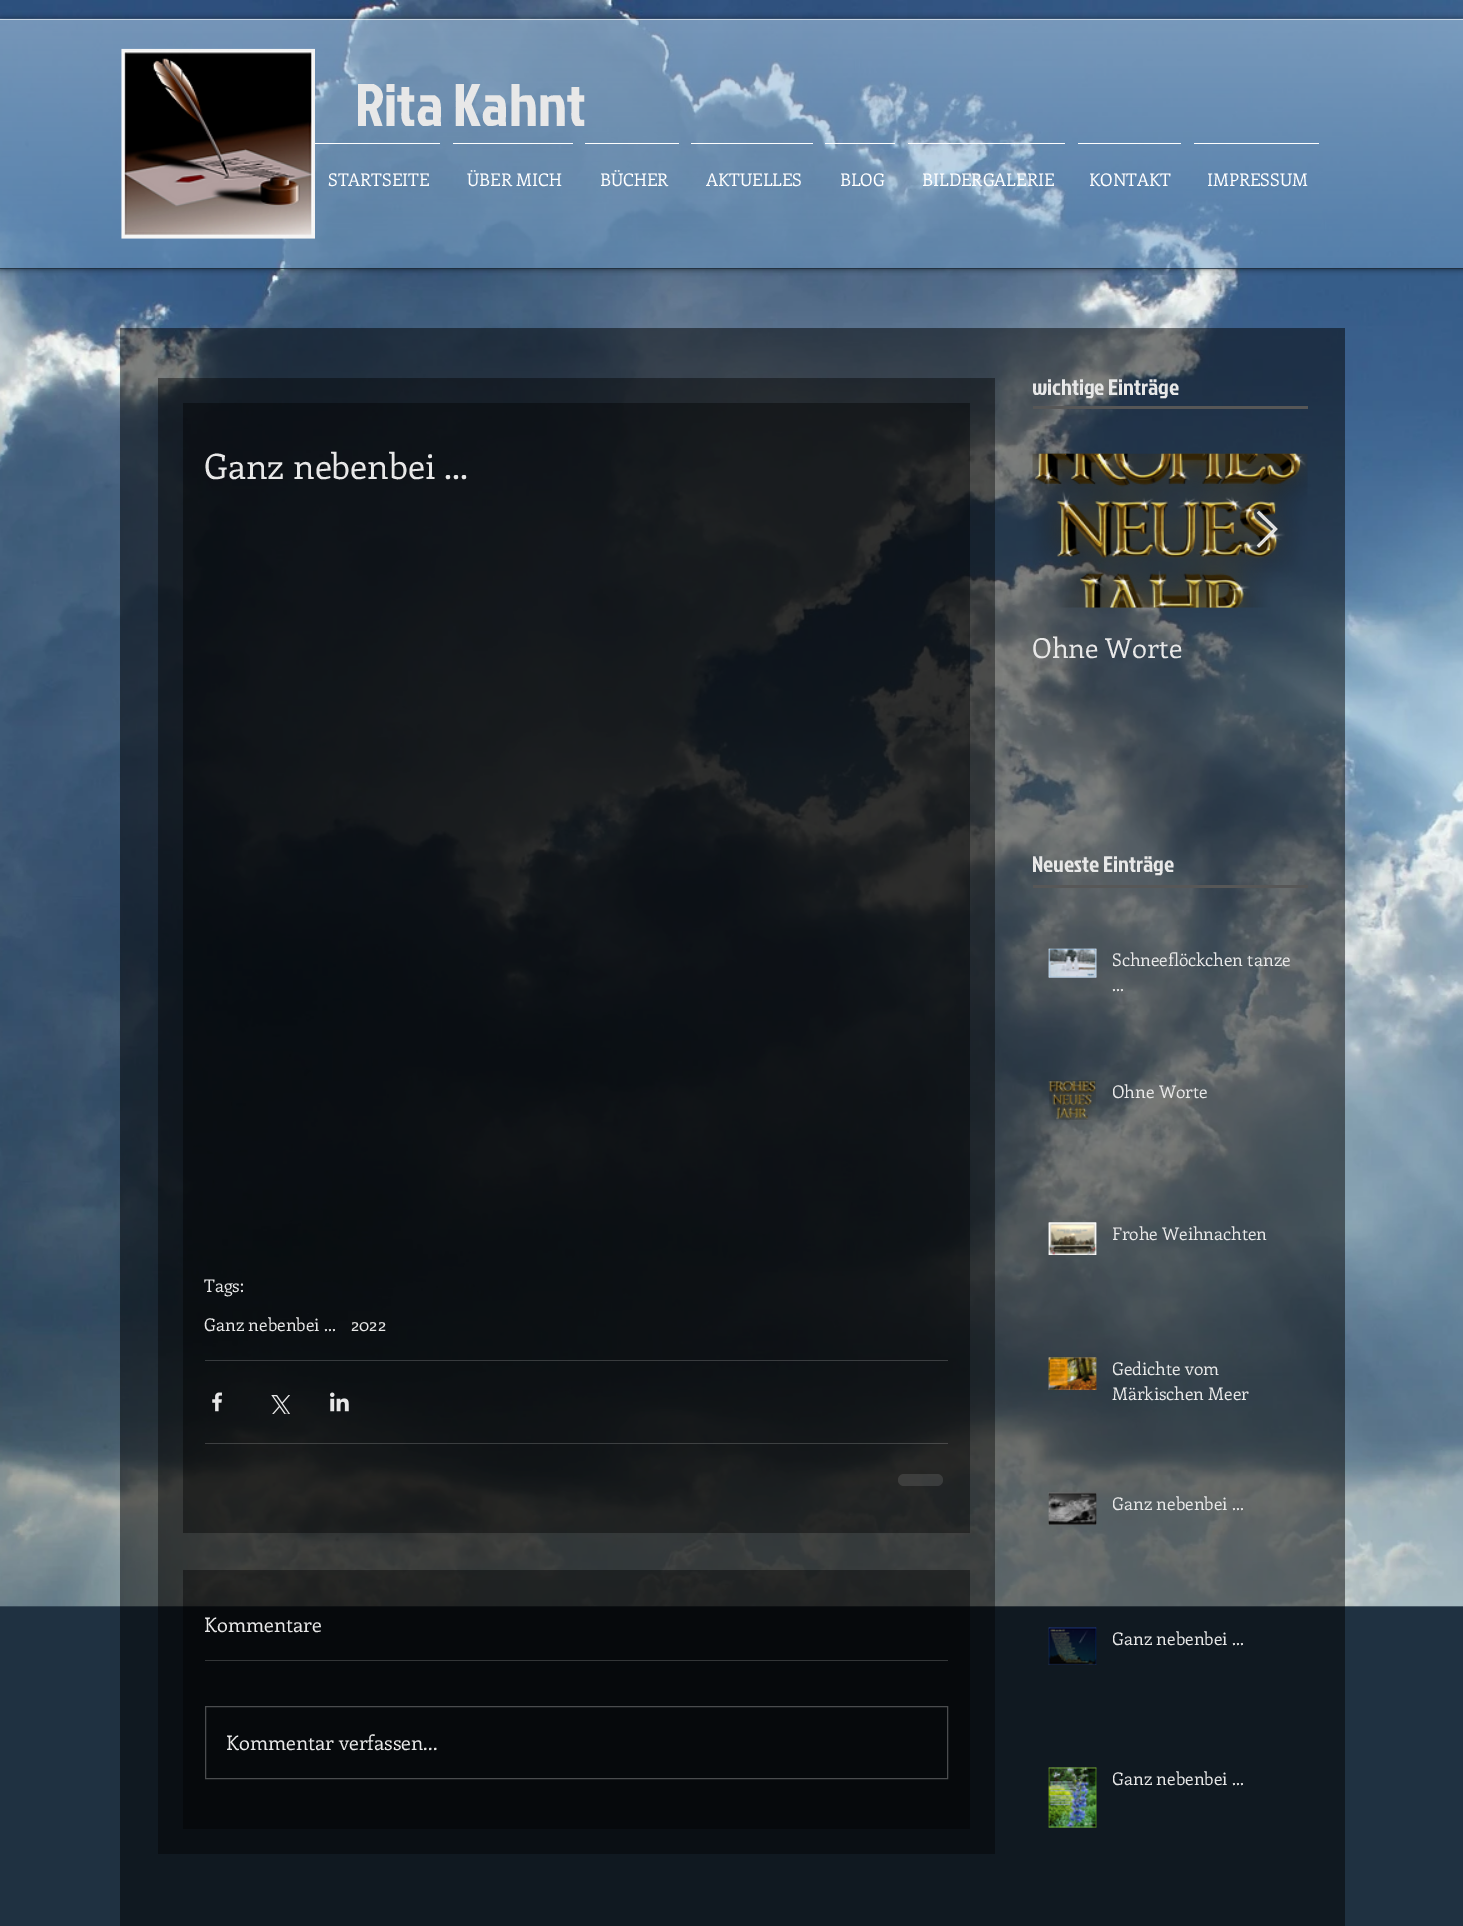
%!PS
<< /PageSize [1463 1926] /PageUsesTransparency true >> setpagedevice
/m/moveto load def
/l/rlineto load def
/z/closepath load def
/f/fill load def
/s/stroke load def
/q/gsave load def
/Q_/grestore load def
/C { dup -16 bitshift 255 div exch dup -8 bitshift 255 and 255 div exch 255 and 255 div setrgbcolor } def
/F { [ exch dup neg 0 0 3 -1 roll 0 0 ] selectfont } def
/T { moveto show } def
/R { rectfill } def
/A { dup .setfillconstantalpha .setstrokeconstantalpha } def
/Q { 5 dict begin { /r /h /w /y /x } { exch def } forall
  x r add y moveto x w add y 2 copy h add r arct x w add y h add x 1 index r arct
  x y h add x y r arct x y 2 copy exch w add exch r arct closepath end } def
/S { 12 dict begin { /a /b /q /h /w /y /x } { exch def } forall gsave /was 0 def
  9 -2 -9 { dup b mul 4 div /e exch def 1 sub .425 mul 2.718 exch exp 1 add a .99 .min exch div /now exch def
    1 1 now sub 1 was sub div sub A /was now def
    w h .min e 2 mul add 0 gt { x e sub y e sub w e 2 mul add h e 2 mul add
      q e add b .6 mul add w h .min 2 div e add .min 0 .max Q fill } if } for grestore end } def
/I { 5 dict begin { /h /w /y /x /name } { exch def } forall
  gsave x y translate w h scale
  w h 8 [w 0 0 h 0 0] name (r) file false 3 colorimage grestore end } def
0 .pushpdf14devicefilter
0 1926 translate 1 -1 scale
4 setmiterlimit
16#1F3141 C
0 0 1463 1926 R
(1.rgb) 0 0 1463 1607 I
q
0 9 m 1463 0 l 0 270 l -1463 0 l z 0 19 m 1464 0 l 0 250 l -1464 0 l z eoclip newpath
16#000000 C
0 19 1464 250 0 3 .6 S
Q_
0.48 A
16#5E93C4 C
0 19 1463 250 R
1 A
(2.rgb) 0 18 1463 251 I
0.6 A
16#000000 C
0 268 1463 1 R
16#FFFFFF C
0 19 1463 1 R
1 A
(3.rgb) 121 48 194 191 I
/JockeyOne-Regular 60 F
16#E8E8E8 C
(Rita Kahnt) 355 126 T
16#FFFFFF C
315 143 125 1 R
/Enriqueta-Regular 17.5 F
(STARTSEITE) 328 186 T
453 143 120 1 R
(ÜBER MICH) 467 186 T
585 143 94 1 R
(BÜCHER) 600 186 T
691 143 122 1 R
(AKTUELLES) 706 186 T
825 143 70 1 R
(BLOG) 840 186 T
908 143 157 1 R
(BILDERGALERIE) 922 186 T
1078 143 103 1 R
(KONTAKT) 1089 186 T
1194 143 125 1 R
(IMPRESSUM) 1207 186 T
0.49 A
16#000000 C
120 328 1225 1598 R
0.4 A
158 378 837 1476 R
183 403 787 1130 R
/Enriqueta-Regular 35 F
1 A
16#E8E8E8 C
(Ganz nebenbei ...) 204 479 T
/Enriqueta-Regular 17.5 F
(Tags:) 204 1292 T
(Ganz nebenbei ...) 204 1331 T
(2022) 351 1331 T
0.2 A
205 1360 743 1 R
1 A
(4.rgb) 212 1392 10 20 I
(5.rgb) 271 1395 19 19 I
(6.rgb) 330 1392 19 20 I
0.2 A
205 1443 743 1 R
0.12 A
898 1474 45 12 6 Q f
0.4 A
16#000000 C
183 1570 787 259 R
/Enriqueta-Regular 20 F
1 A
16#E8E8E8 C
(Kommentare) 204 1632 T
16#333638 C
205 1660 743 1 R
16#4A4C4E C
205.5 1706.5 742 72 rectstroke
16#E8E8E8 C
(Kommentar verfassen...) 226 1750 T
/JockeyOne-Regular 22.5 F
(wichtige Einträge) 1032 395 T
16#575757 C
1033 406 275 3 R
(7.rgb) 1032 453 276 155 I
(8.rgb) 1035 453 271 155 I
0.9 A
16#E8E8E8 C
1257.5 513 m 1.5 -1.5 l 18 17.5 l -18 18 l -1.5 -1.5 l 16.5 -16.5 l z q f Q_
s
/Enriqueta-Regular 27.5 F
1 A
(Ohne Worte) 1032 658 T
/JockeyOne-Regular 22.5 F
(Neueste Einträge) 1032 872 T
16#575757 C
1033 885 275 3 R
(9.rgb) 1048 948 49 30 I
(10.rgb) 1048 948 49 30 I
q
1113 948 180 48 rectclip
/Enriqueta-Regular 17.5 F
16#E8E8E8 C
(Schneeflöckchen tanze) 1112 966 T
Q_
/Enriqueta-Regular 17.5 F
16#E8E8E8 C
(...) 1112 991 T
(11.rgb) 1049 1080 47 40 I
(12.rgb) 1048 1081 48 39 I
q
1113 1079 180 25 rectclip
(Ohne Worte) 1112 1098 T
Q_
(13.rgb) 1048 1222 49 33 I
(14.rgb) 1048 1222 49 33 I
q
1113 1221 180 25 rectclip
(Frohe Weihnachten) 1112 1240 T
Q_
(15.rgb) 1048 1357 49 33 I
(16.rgb) 1048 1357 49 33 I
q
1113 1356 180 49 rectclip
(Gedichte vom) 1112 1375 T
Q_
(Märkischen Meer) 1112 1400 T
(17.rgb) 1048 1492 49 33 I
(18.rgb) 1048 1492 49 33 I
q
1113 1491 180 25 rectclip
(Ganz nebenbei ...) 1112 1510 T
Q_
(19.rgb) 1048 1627 49 38 I
(20.rgb) 1048 1627 49 38 I
q
1113 1626 180 25 rectclip
(Ganz nebenbei ...) 1112 1645 T
Q_
(21.rgb) 1048 1767 49 61 I
(22.rgb) 1048 1767 49 61 I
q
1113 1766 180 25 rectclip
(Ganz nebenbei ...) 1112 1785 T
Q_
.poppdf14devicefilter showpage
